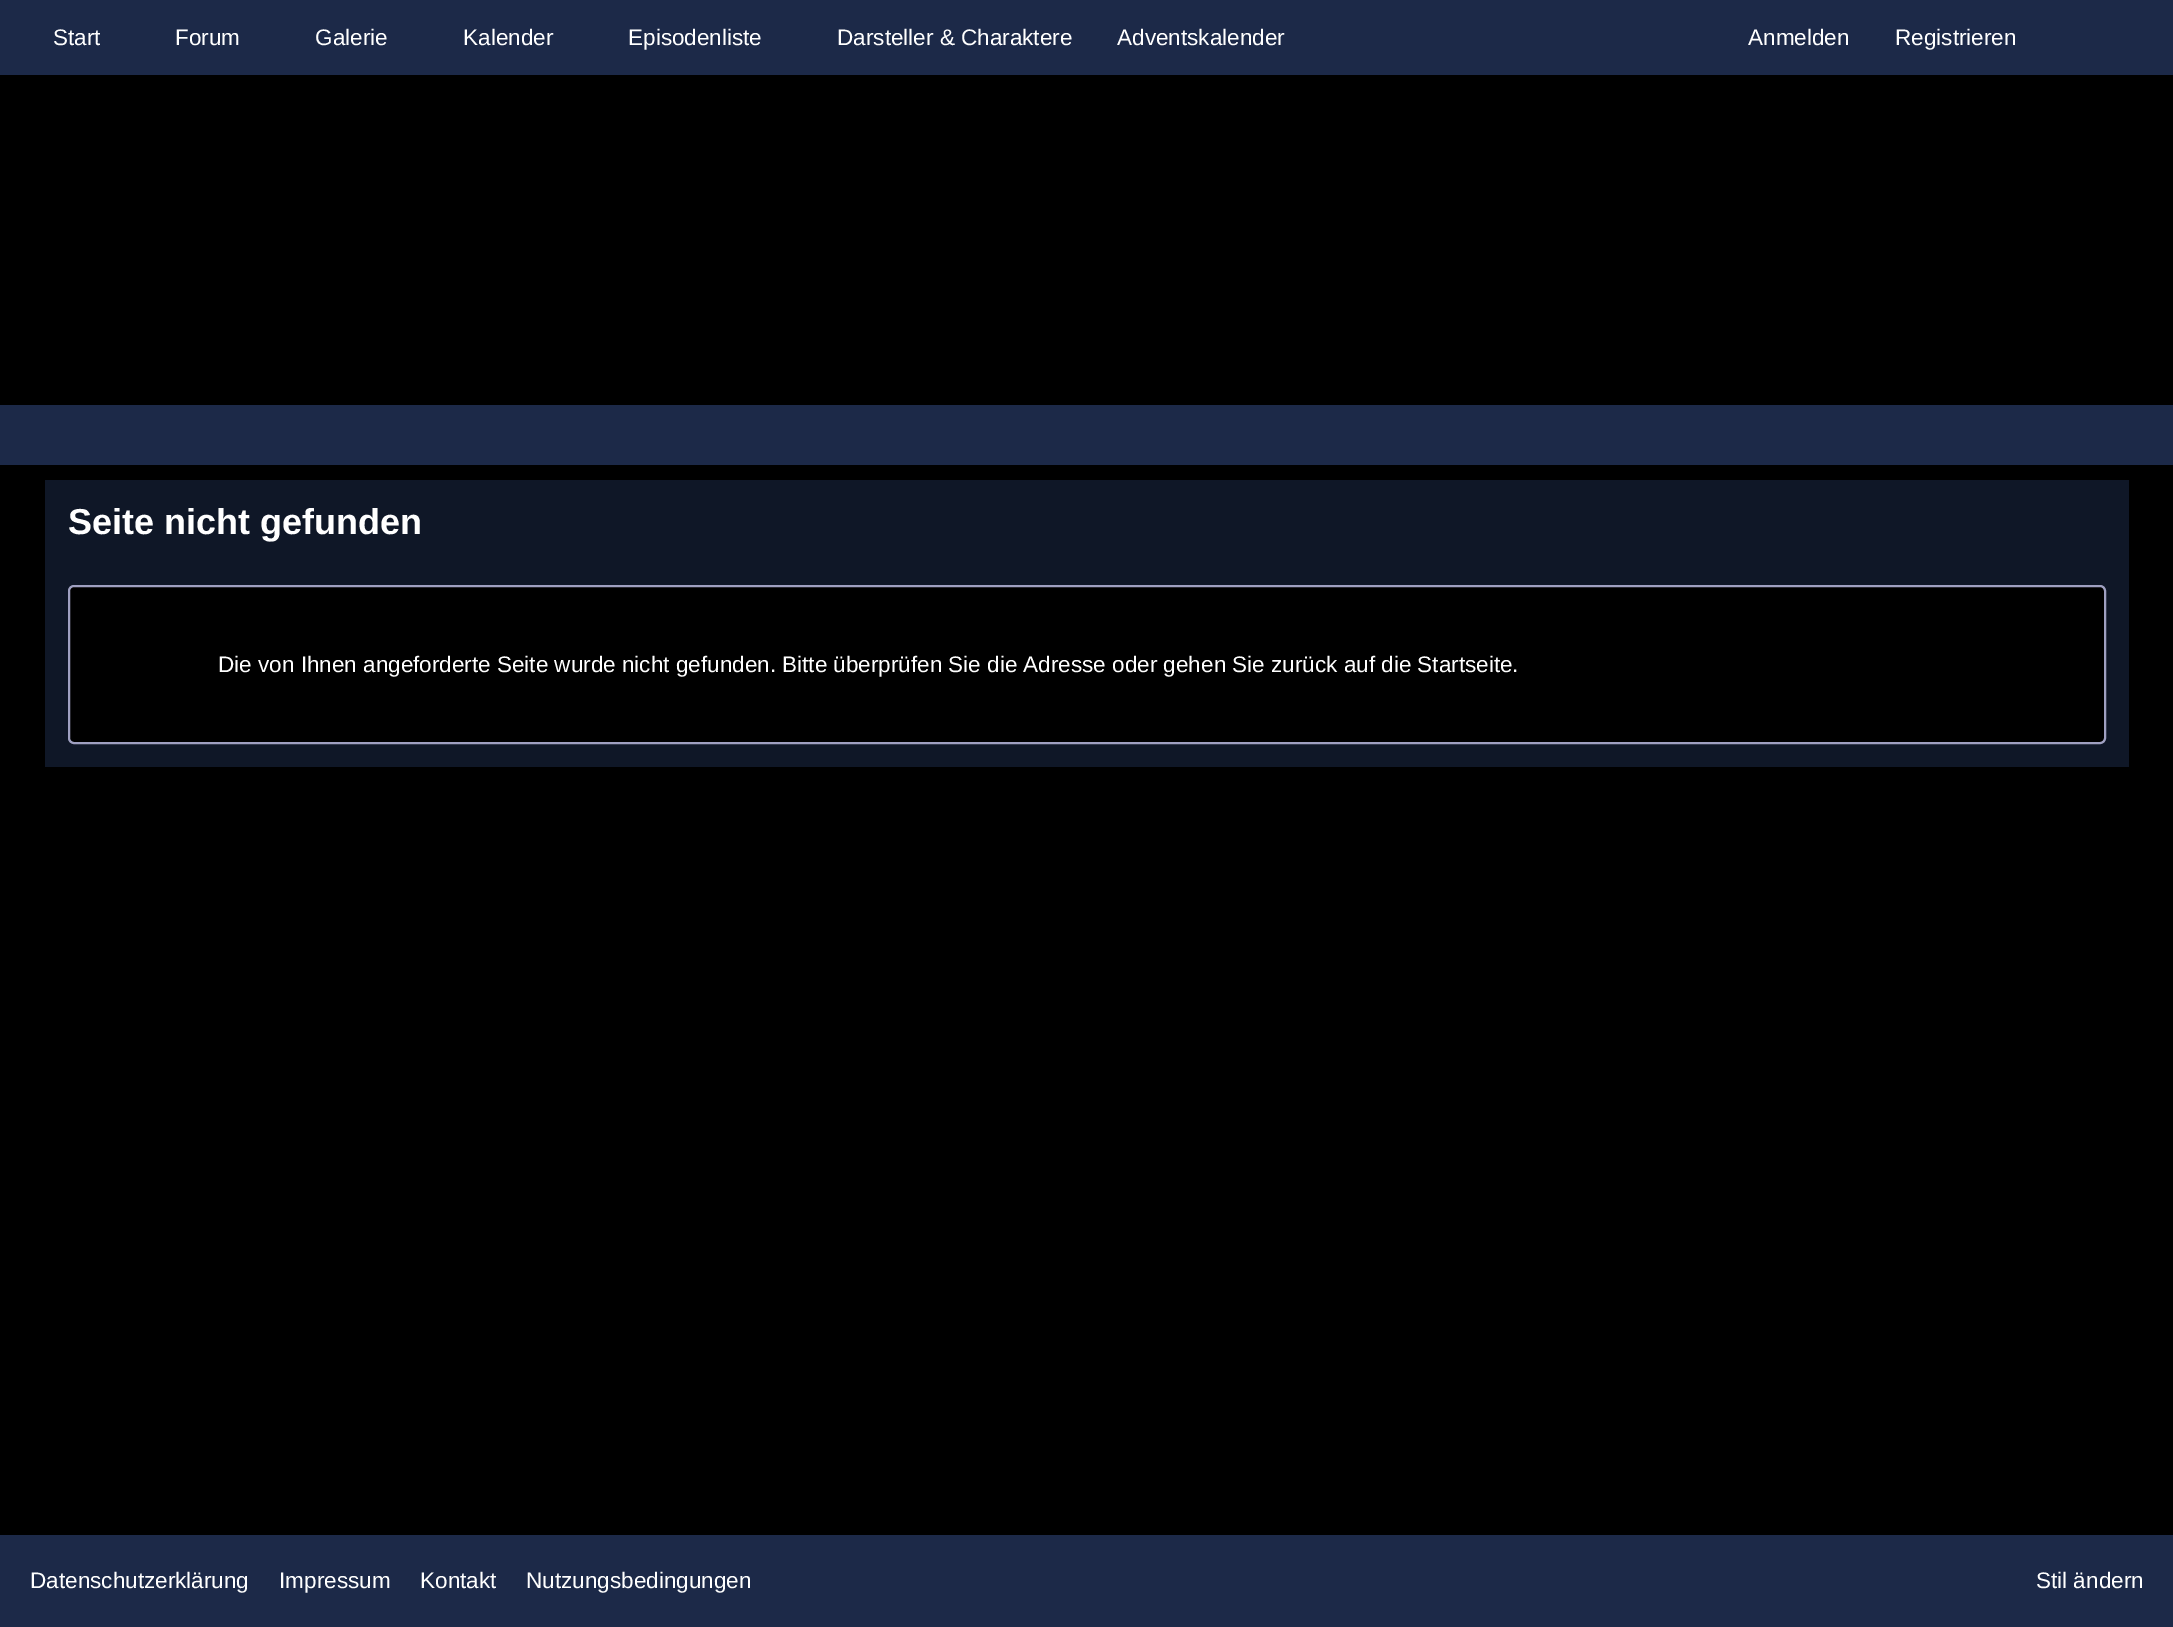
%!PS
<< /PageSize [2173 1627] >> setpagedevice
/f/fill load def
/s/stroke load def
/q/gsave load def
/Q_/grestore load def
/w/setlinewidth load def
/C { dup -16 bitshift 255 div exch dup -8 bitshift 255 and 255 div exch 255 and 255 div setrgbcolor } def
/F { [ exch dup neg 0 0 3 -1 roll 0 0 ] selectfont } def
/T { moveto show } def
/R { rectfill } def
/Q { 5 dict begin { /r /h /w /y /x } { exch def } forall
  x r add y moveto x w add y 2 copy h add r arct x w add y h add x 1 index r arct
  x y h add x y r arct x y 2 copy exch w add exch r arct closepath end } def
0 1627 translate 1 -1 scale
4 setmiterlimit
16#000000 C
0 0 2173 1627 R
16#1C2948 C
0 0 2173 75 R
/LiberationSans-Regular 22.5 F
16#FFFFFF C
(Start) 53 45 T
(Forum) 175 45 T
(Galerie) 315 45 T
(Kalender) 463 45 T
(Episodenliste) 628 45 T
(Darsteller & Charaktere) 837 45 T
(Adventskalender) 1117 45 T
(Anmelden) 1748 45 T
(Registrieren) 1895 45 T
16#1C2948 C
0 405 2173 60 R
16#0F1727 C
45 480 2084 287 R
/LiberationSans-Bold 36 F
16#FFFFFF C
(Seite nicht gefunden) 68 534 T
16#000000 C
69 586 2036 157 5 Q q f Q_
16#9FA0C1 C
2 w
s
/LiberationSans-Regular 22.5 F
16#FFFFFF C
(Die von Ihnen angeforderte Seite wurde nicht gefunden. Bitte überprüfen Sie die Adresse oder gehen Sie zurück auf die Startseite.) 218 672 T
16#1C2948 C
0 1535 2173 92 R
16#FFFFFF C
(Datenschutzerklärung) 30 1588 T
(Impressum) 279 1588 T
(Kontakt) 420 1588 T
(Nutzungsbedingungen) 526 1588 T
(Stil ändern) 2036 1588 T
showpage
